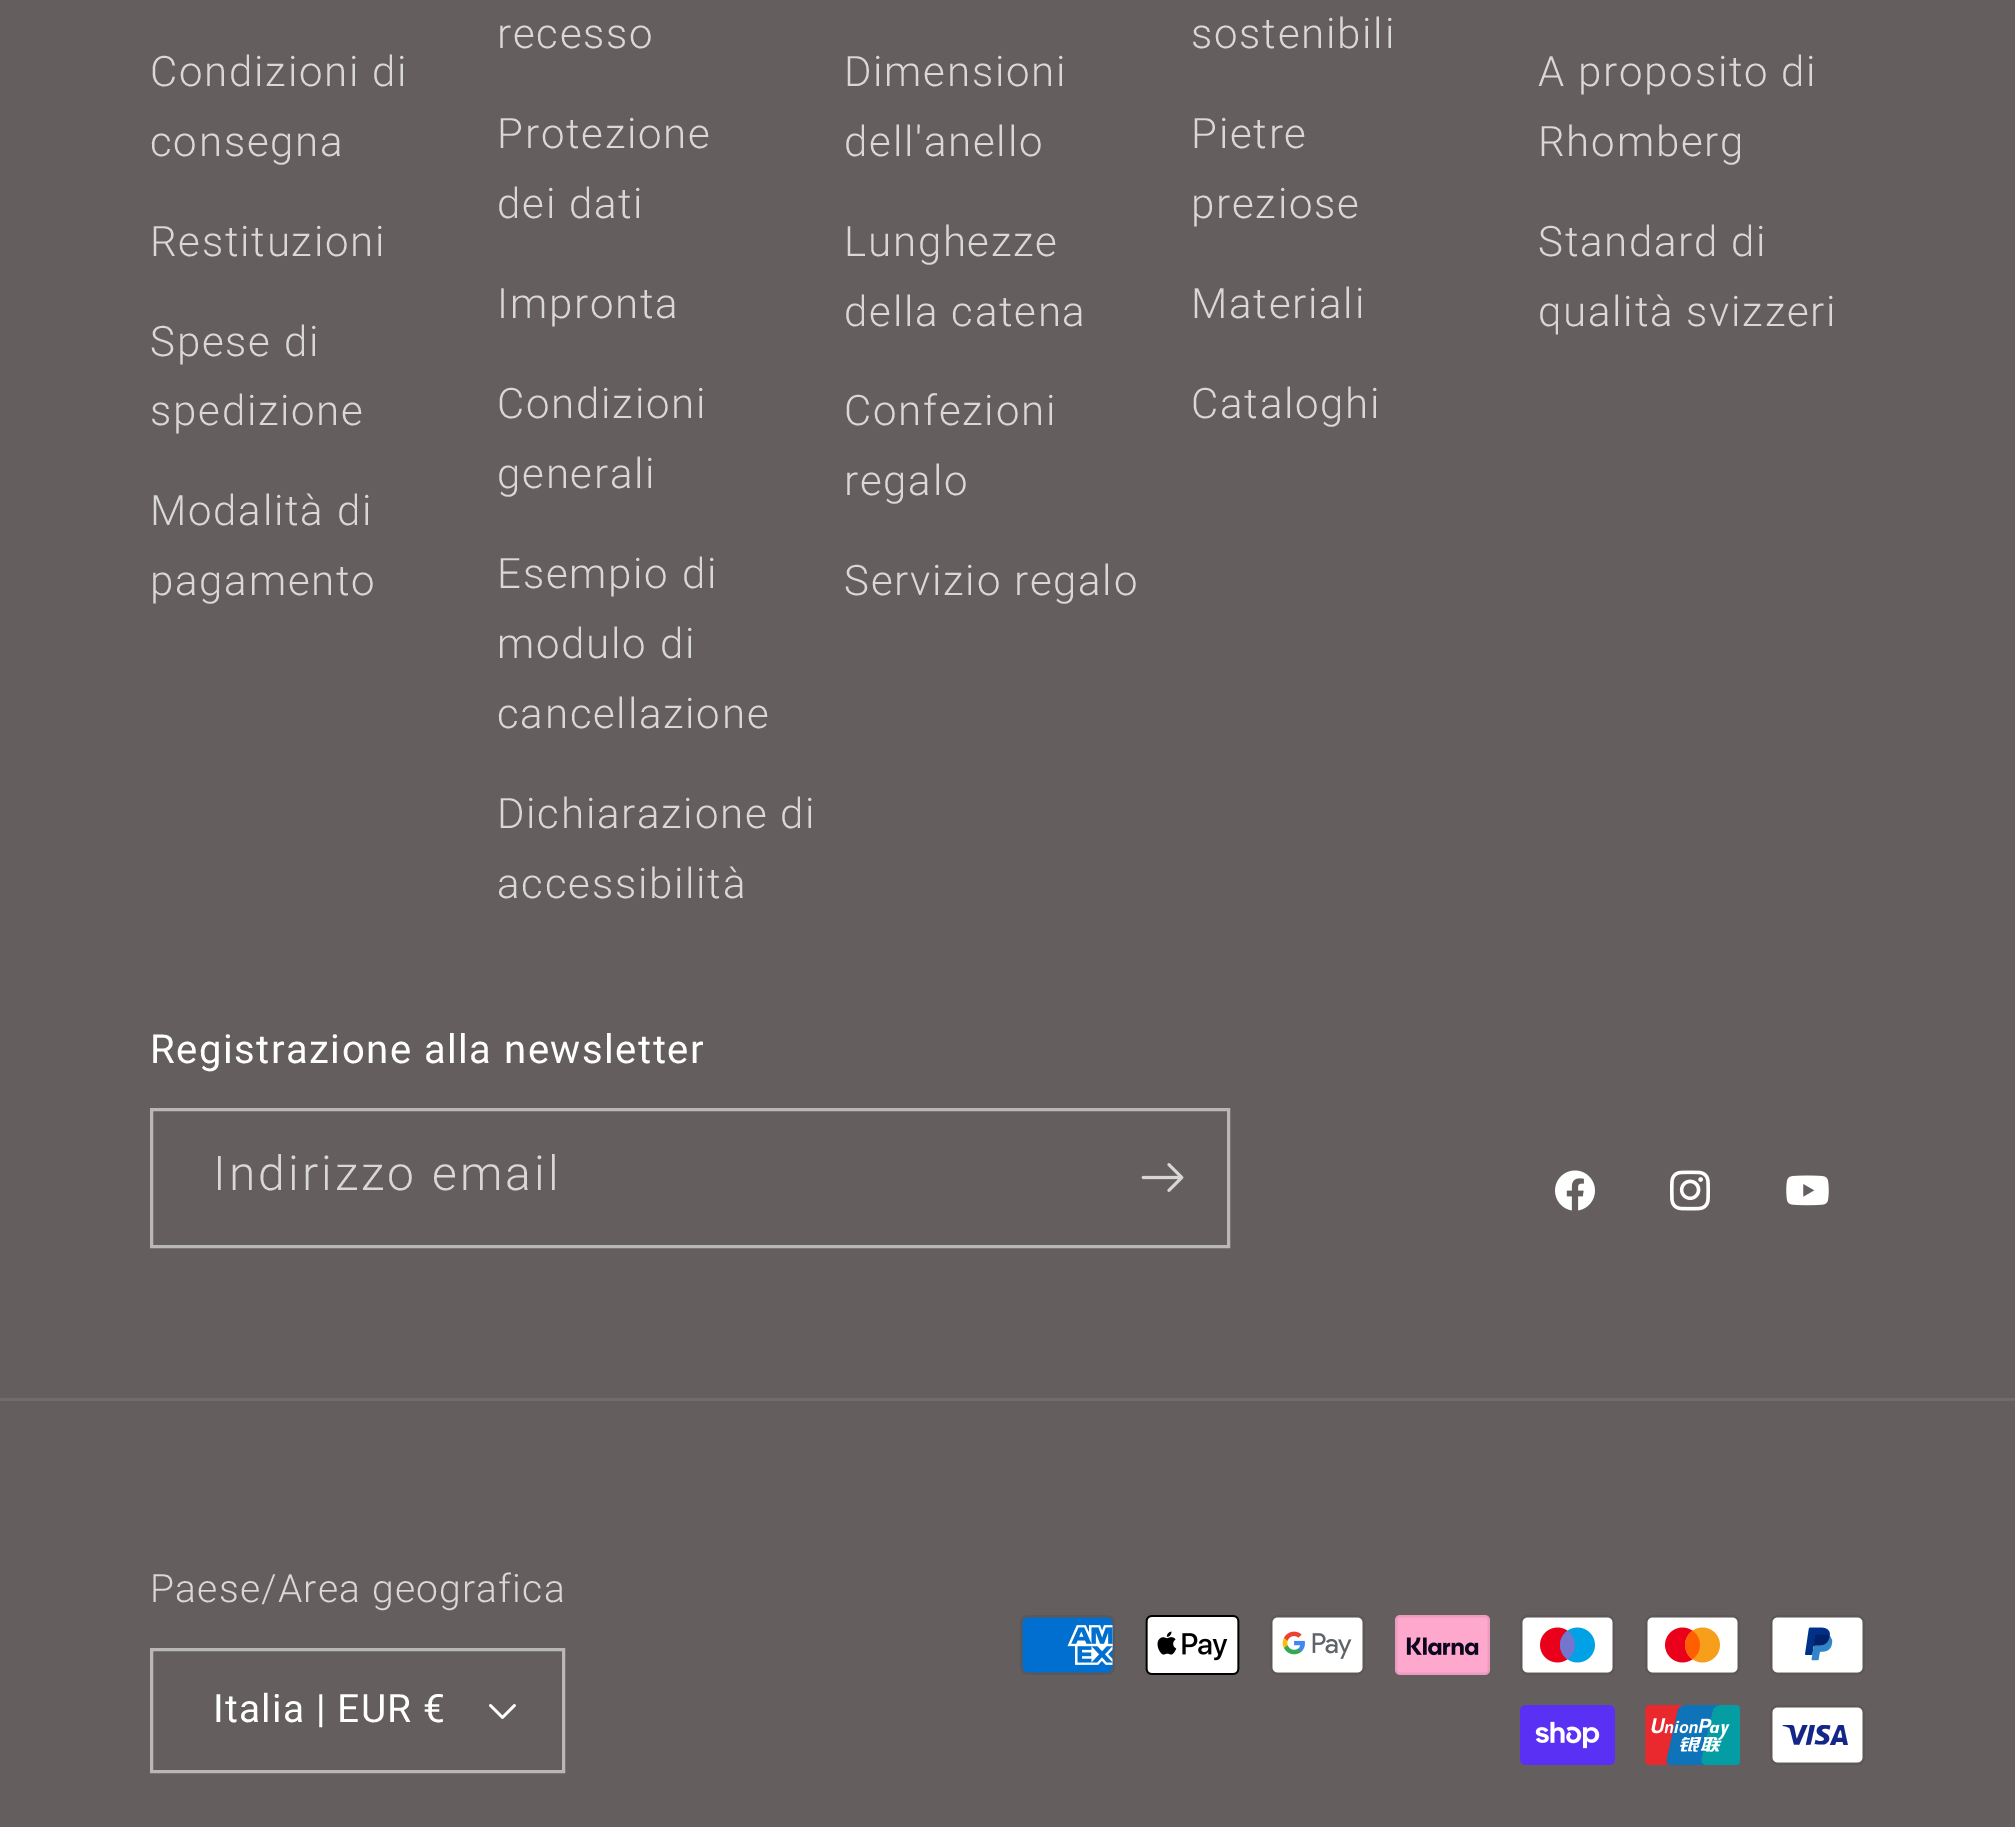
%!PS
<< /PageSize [2015 1827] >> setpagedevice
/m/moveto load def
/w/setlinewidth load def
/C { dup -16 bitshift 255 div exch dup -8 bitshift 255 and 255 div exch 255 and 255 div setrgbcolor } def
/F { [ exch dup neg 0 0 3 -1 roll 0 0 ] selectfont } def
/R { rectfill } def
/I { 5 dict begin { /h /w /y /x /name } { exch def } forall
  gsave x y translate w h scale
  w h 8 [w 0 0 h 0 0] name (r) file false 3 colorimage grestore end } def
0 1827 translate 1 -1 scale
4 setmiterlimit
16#655E5E C
0 0 2015 1827 R
/Roboto-Light 42 F
16#D9D7D7 C
150 86 m 1.75 0 (Condizioni di) ashow
150 156 m 1.75 0 (consegna) ashow
150 256 m 1.75 0 (Restituzioni) ashow
150 356 m 1.75 0 (Spese di) ashow
150 425 m 1.75 0 (spedizione) ashow
150 525 m 1.75 0 (Modalità di) ashow
150 595 m 1.75 0 (pagamento) ashow
497 48 m 1.75 0 (recesso) ashow
497 148 m 1.75 0 (Protezione) ashow
497 218 m 1.75 0 (dei dati) ashow
497 318 m 1.75 0 (Impronta) ashow
497 418 m 1.75 0 (Condizioni) ashow
497 488 m 1.75 0 (generali) ashow
497 588 m 1.75 0 (Esempio di) ashow
497 658 m 1.75 0 (modulo di) ashow
497 728 m 1.75 0 (cancellazione) ashow
497 828 m 1.75 0 (Dichiarazione di) ashow
497 898 m 1.75 0 (accessibilità) ashow
844 86 m 1.75 0 (Dimensioni) ashow
844 156 m 1.75 0 (dell'anello) ashow
844 256 m 1.75 0 (Lunghezze) ashow
844 326 m 1.75 0 (della catena) ashow
844 425 m 1.75 0 (Confezioni) ashow
844 495 m 1.75 0 (regalo) ashow
844 595 m 1.75 0 (Servizio regalo) ashow
1191 48 m 1.75 0 (sostenibili) ashow
1191 148 m 1.75 0 (Pietre) ashow
1191 218 m 1.75 0 (preziose) ashow
1191 318 m 1.75 0 (Materiali) ashow
1191 418 m 1.75 0 (Cataloghi) ashow
1538 86 m 1.75 0 (A proposito di) ashow
1538 156 m 1.75 0 (Rhomberg) ashow
1538 256 m 1.75 0 (Standard di) ashow
1538 326 m 1.75 0 (qualità svizzeri) ashow
/Roboto-Regular 40 F
16#FFFFFF C
150 1063 m 1.5 0 (Registrazione alla newsletter) ashow
16#BAB7B7 C
3 w
151.5 1109.5 1077 137 rectstroke
/Roboto-Light 48 F
16#D9D7D7 C
213 1190 m 3 0 (Indirizzo email) ashow
(1.rgb) 1141 1163 43 29 I
(2.rgb) 1555 1170 40 41 I
(3.rgb) 1670 1170 40 41 I
(4.rgb) 1786 1175 43 31 I
16#716B6B C
0 1398 2015 3 R
/Roboto-Light 39 F
16#D9D7D7 C
150 1602 m 1.2 0 (Paese/Area geografica) ashow
(5.rgb) 489 1704 27 15 I
16#BAB7B7 C
151.5 1649.5 412 122 rectstroke
/Roboto-Regular 39 F
16#FFFFFF C
213 1722 m 1.2 0 (Italia | EUR €) ashow
(6.rgb) 1020 1615 95 60 I
(7.rgb) 1145 1615 95 60 I
(8.rgb) 1270 1615 95 60 I
(9.rgb) 1395 1615 95 60 I
(10.rgb) 1520 1615 95 60 I
(11.rgb) 1645 1615 95 60 I
(12.rgb) 1770 1615 95 60 I
(13.rgb) 1520 1705 95 60 I
(14.rgb) 1645 1705 95 60 I
(15.rgb) 1770 1705 95 60 I
showpage
